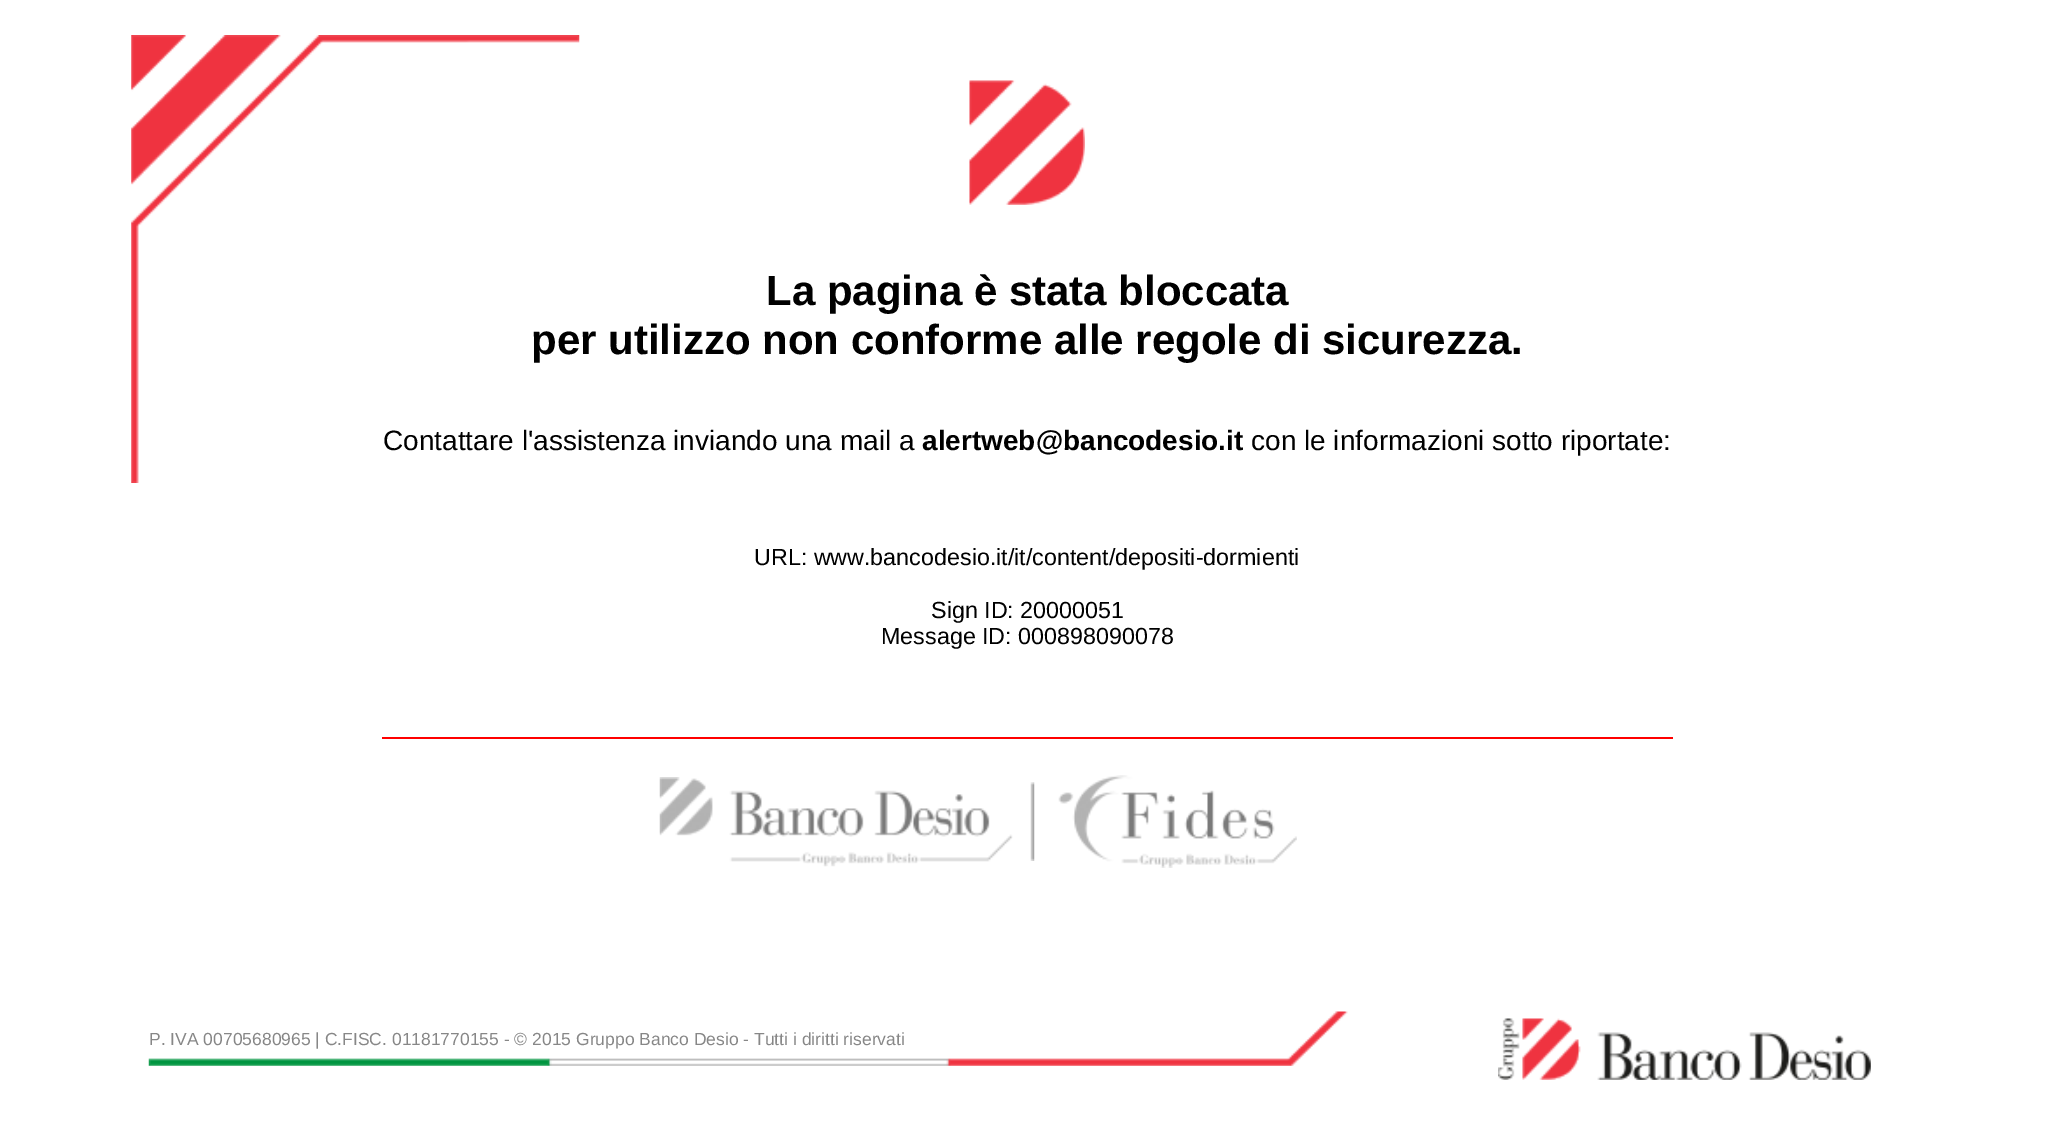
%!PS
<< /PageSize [2054 1131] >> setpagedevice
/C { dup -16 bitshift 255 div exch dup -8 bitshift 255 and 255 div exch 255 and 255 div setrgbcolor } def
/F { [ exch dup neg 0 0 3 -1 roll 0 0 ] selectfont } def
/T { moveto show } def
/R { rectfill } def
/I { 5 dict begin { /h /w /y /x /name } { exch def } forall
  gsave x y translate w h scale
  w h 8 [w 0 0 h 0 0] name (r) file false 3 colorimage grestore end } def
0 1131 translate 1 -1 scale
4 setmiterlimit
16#FFFFFF C
0 0 2054 1131 R
(1.rgb) 131 35 449 448 I
(2.rgb) 969 80 116 125 I
/LiberationSans-Bold 42 F
16#000000 C
(La pagina è stata bloccata) 766 305 T
(per utilizzo non conforme alle regole di sicurezza.) 531 354 T
/LiberationSans-Regular 28 F
(Contattare l'assistenza inviando una mail a) 383 450 T
/LiberationSans-Bold 28 F
(alertweb@bancodesio.it) 922 450 T
/LiberationSans-Regular 28 F
(con le informazioni sotto riportate:) 1251 450 T
/LiberationSans-Regular 23.3 F
(URL: www.bancodesio.it/it/content/depositi-dormienti) 754 565 T
(Sign ID: 20000051) 931 618 T
(Message ID: 000898090078) 881 644 T
16#FF0000 C
382 737 1291 2 R
(3.rgb) 659 777 354 90 I
(4.rgb) 1030 782 5 79 I
(5.rgb) 1058 775 239 93 I
(6.rgb) 148 1011 1200 55 I
/LiberationSans-Regular 17.5 F
16#878787 C
(P. IVA 00705680965 | C.FISC. 01181770155 - © 2015 Gruppo Banco Desio - Tutti i diritti riservati) 149 1045 T
(7.rgb) 1498 1018 373 62 I
showpage
